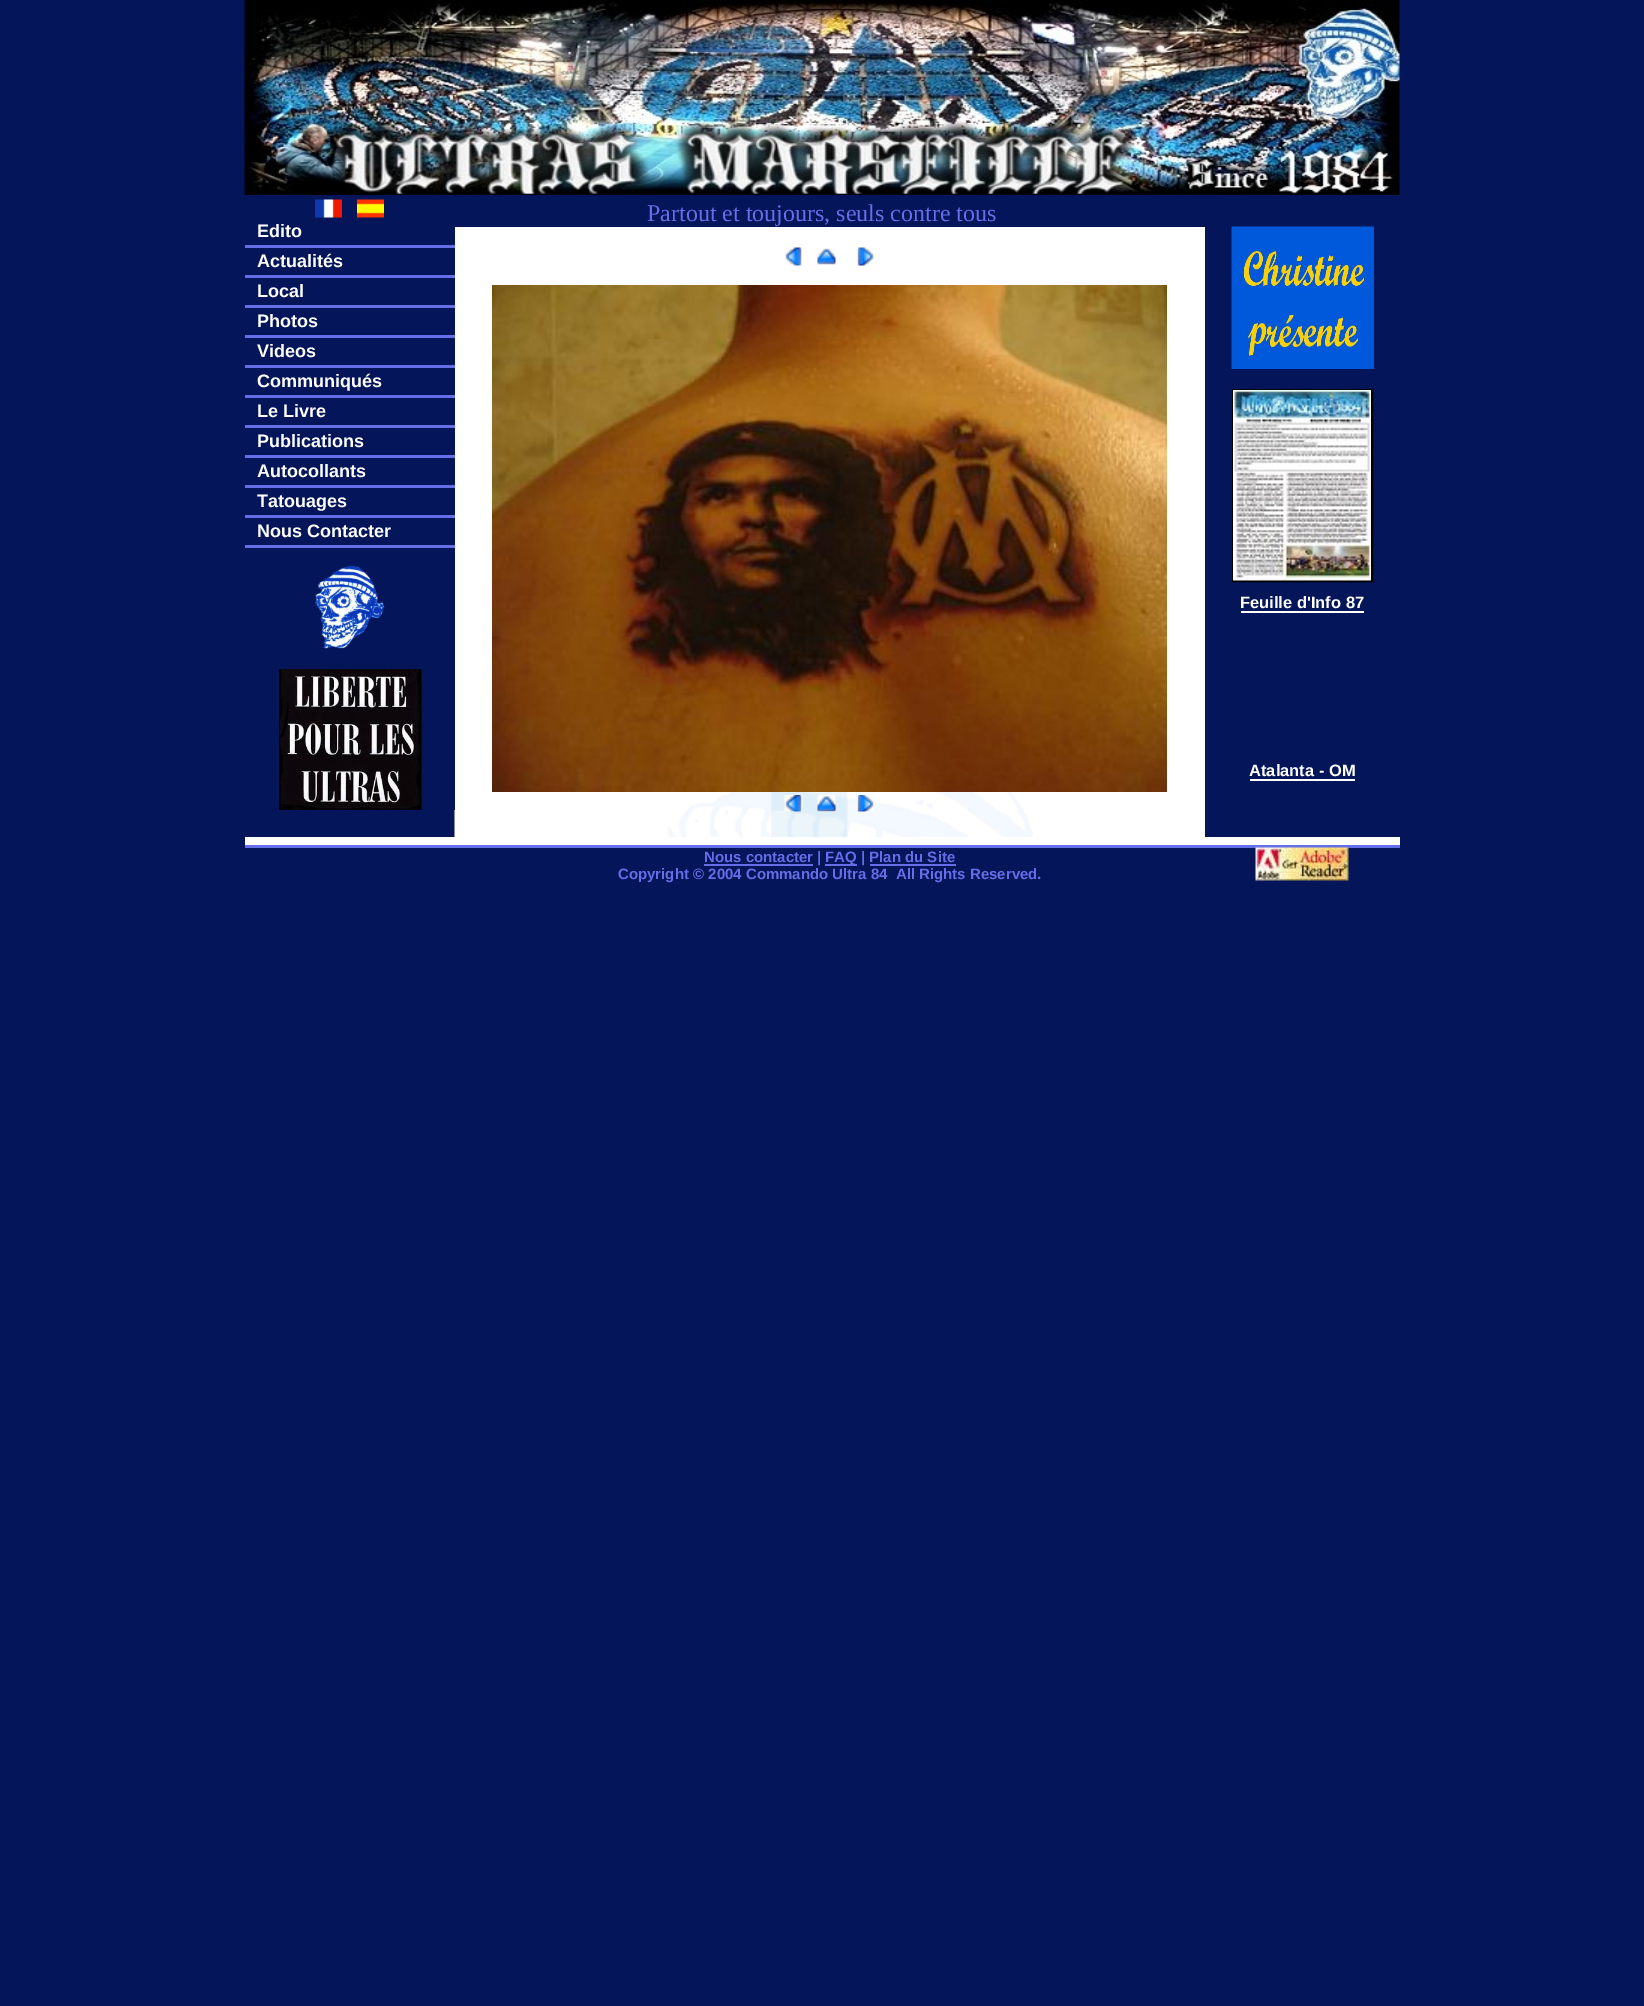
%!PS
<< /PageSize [1644 2006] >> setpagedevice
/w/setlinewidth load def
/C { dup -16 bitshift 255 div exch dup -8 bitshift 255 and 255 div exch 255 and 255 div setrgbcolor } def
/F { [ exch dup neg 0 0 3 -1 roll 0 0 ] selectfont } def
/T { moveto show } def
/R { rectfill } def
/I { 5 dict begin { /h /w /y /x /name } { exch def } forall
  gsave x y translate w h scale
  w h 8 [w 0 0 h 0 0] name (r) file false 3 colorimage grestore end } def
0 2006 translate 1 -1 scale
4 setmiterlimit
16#04155A C
0 0 1644 2006 R
(1.rgb) 244 0 1156 195 I
/LiberationSerif-Regular 24 F
16#646EE6 C
(Partout et toujours, seuls contre tous) 647 221 T
(2.rgb) 315 199 27 19 I
(3.rgb) 357 199 27 19 I
16#FFFFFF C
455 227 750 610 R
(6.rgb) 454 720 579 117 I
16#04155A C
454 720 1 90 R
/LiberationSans-Bold 18 F
16#FFFFFF C
(Edito) 257 237 T
16#646EE6 C
245 245 210 3 R
16#FFFFFF C
(Actualités) 257 267 T
16#646EE6 C
245 275 210 3 R
16#FFFFFF C
(Local) 257 297 T
16#646EE6 C
245 305 210 3 R
16#FFFFFF C
(Photos) 257 327 T
16#646EE6 C
245 335 210 3 R
16#FFFFFF C
(Videos) 257 357 T
16#646EE6 C
245 365 210 3 R
16#FFFFFF C
(Communiqués) 257 387 T
16#646EE6 C
245 395 210 3 R
16#FFFFFF C
(Le Livre) 257 417 T
16#646EE6 C
245 425 210 3 R
16#FFFFFF C
(Publications) 257 447 T
16#646EE6 C
245 455 210 3 R
16#FFFFFF C
(Autocollants) 257 477 T
16#646EE6 C
245 485 210 3 R
16#FFFFFF C
(Tatouages) 257 507 T
16#646EE6 C
245 515 210 3 R
16#FFFFFF C
(Nous Contacter) 257 537 T
16#646EE6 C
245 545 210 3 R
(4.rgb) 315 565 70 84 I
(5.rgb) 279 669 143 141 I
(7.rgb) 785 247 17 19 I
(8.rgb) 817 248 19 17 I
(9.rgb) 857 247 17 19 I
(10.rgb) 492 285 675 507 I
(11.rgb) 784 795 19 17 I
(12.rgb) 817 795 19 17 I
(13.rgb) 856 795 19 17 I
(14.rgb) 1231 226 143 143 I
16#000000 C
2 w
1233 390 139 191 rectstroke
(15.rgb) 1233 390 138 191 I
/LiberationSans-Bold 16.5 F
16#FFFFFF C
(Feuille d'Info 87) 1240 608 T
1241 611 123 2 R
(Atalanta - OM) 1249 776 T
1250 779 105 2 R
245 837 1155 8 R
16#646EE6 C
245 845 1155 3 R
704 864 109 2 R
/LiberationSans-Bold 15 F
(Nous contacter |) 704 862 T
825 864 32 2 R
(FAQ | Plan du Site) 825 862 T
870 864 86 2 R
(Copyright © 2004 Commando Ultra 84  All Rights Reserved.) 618 879 T
(16.rgb) 1255 847 94 34 I
showpage
